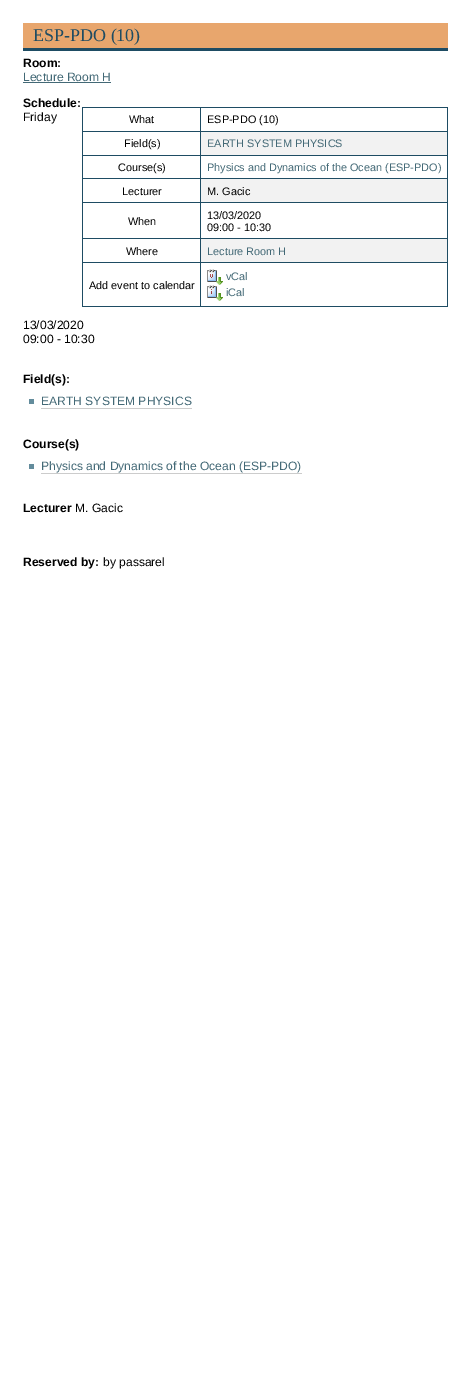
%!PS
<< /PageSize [471 1382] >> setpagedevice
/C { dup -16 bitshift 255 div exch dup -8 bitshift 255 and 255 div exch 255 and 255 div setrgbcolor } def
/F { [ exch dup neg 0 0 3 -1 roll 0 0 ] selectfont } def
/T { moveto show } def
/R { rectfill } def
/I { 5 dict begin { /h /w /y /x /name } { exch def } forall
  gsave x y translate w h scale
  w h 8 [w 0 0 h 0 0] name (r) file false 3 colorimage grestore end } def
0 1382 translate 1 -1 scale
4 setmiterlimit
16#FFFFFF C
0 0 471 1382 R
16#E8A66D C
23 23 425 25 R
16#1E4C63 C
23 48 425 3 R
/LiberationSerif-Regular 18 F
(ESP-PDO \(10\)) 33 41 T
/LiberationSans-Bold 12.1 F
16#000000 C
(Room:) 23 67 T
/LiberationSans-Regular 12.1 F
16#436976 C
(Lecture Room H) 23 81 T
23 82 88 1 R
/LiberationSans-Bold 12.1 F
16#000000 C
(Schedule:) 23 107 T
/LiberationSans-Regular 12.1 F
(Friday) 23 121 T
(13/03/2020) 23 329 T
(09:00 - 10:30) 23 343 T
16#1E4C63 C
82 306 366 1 R
82 107 1 200 R
82 107 366 1 R
82 131 366 1 R
82 155 366 1 R
82 178 366 1 R
82 202 366 1 R
82 238 366 1 R
82 262 366 1 R
200 262 1 45 R
200 238 1 25 R
200 202 1 37 R
200 178 1 25 R
200 155 1 24 R
200 131 1 25 R
200 107 1 25 R
/LiberationSans-Regular 10.9 F
16#000000 C
(What) 129 123 T
16#1E4C63 C
447 262 1 45 R
447 238 1 25 R
447 202 1 37 R
447 178 1 25 R
447 155 1 24 R
447 131 1 25 R
447 107 1 25 R
16#000000 C
(ESP-PDO \(10\)) 207 123 T
16#F2F2F2 C
201 132 246 23 R
16#000000 C
(Field\(s\)) 124 147 T
16#436976 C
(EARTH SYSTEM PHYSICS) 207 147 T
16#000000 C
(Course\(s\)) 118 171 T
16#436976 C
(Physics and Dynamics of the Ocean \(ESP-PDO\)) 207 171 T
16#F2F2F2 C
201 179 246 23 R
16#000000 C
(Lecturer) 122 195 T
(M. Gacic) 207 195 T
(When) 128 225 T
(13/03/2020) 207 219 T
(09:00 - 10:30) 207 231 T
16#F2F2F2 C
201 239 246 23 R
16#000000 C
(Where) 126 255 T
16#436976 C
(Lecture Room H) 207 255 T
16#000000 C
(Add event to calendar) 89 289 T
(1.rgb) 207 269 16 16 I
16#436976 C
(vCal) 226 280 T
(2.rgb) 207 285 16 16 I
(iCal) 226 296 T
/LiberationSans-Bold 12.1 F
16#000000 C
(Field\(s\):) 23 383 T
16#638C9C C
29 399 5 5 R
/LiberationSans-Regular 12.1 F
16#436976 C
(EARTH SYSTEM PHYSICS) 41 405 T
16#CCCCCC C
41 408 151 1 R
/LiberationSans-Bold 12.1 F
16#000000 C
(Course\(s\)) 23 448 T
16#638C9C C
29 464 5 5 R
/LiberationSans-Regular 12.1 F
16#436976 C
(Physics and Dynamics of the Ocean \(ESP-PDO\)) 41 470 T
16#CCCCCC C
41 473 261 1 R
/LiberationSans-Bold 12.1 F
16#000000 C
(Lecturer) 23 512 T
/LiberationSans-Regular 12.1 F
(M. Gacic) 75 512 T
/LiberationSans-Bold 12.1 F
(Reserved by:) 23 566 T
/LiberationSans-Regular 12.1 F
(by passarel) 103 566 T
showpage
